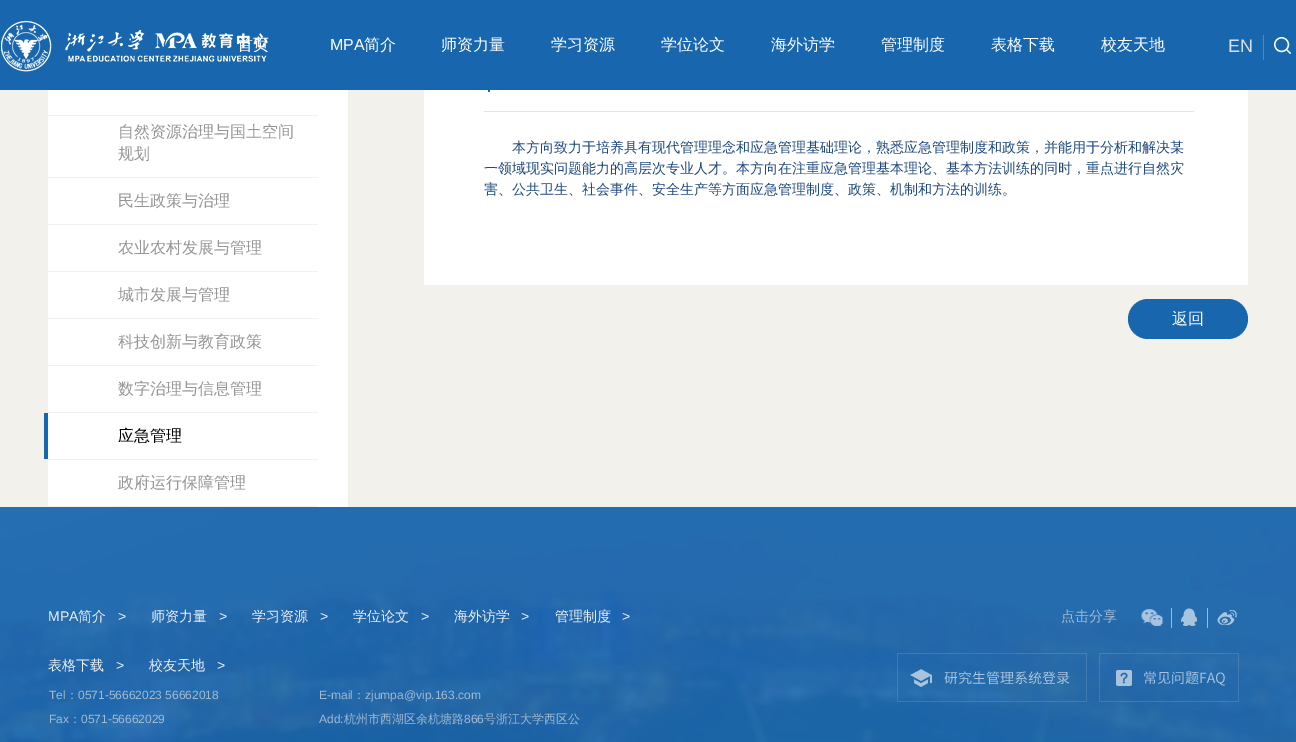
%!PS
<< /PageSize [1296 742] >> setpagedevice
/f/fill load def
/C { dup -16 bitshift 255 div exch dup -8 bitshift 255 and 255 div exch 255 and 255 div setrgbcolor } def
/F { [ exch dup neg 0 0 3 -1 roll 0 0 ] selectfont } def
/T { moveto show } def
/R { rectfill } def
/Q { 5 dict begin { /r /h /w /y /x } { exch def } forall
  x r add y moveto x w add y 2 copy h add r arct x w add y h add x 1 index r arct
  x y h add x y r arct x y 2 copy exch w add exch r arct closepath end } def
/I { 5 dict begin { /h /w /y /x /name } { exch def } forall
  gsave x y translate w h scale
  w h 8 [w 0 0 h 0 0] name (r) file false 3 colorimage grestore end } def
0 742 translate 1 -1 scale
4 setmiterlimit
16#F3F1EC C
0 0 1296 742 R
16#1866AD C
0 0 1296 90 R
(1.rgb) 1 20 267 52 I
/WenQuanYiZenHei-Medium 16 F
16#FFFFFF C
(首页) 237 50 T
/LiberationSans-Regular 16 F
(MPA) 330 50 T
/WenQuanYiZenHei-Medium 16 F
(简介) 364 50 T
(师资力量) 441 50 T
(学习资源) 551 50 T
(学位论文) 661 50 T
(海外访学) 771 50 T
(管理制度) 881 50 T
(表格下载) 991 50 T
(校友天地) 1101 50 T
/LiberationSans-Regular 18 F
16#D9E1EE C
(EN) 1228 52 T
16#4D89C0 C
1263 35 1 25 R
(2.rgb) 1274 37 17 17 I
16#FFFFFF C
48 90 300 417 R
16#F3F1EC C
48 115 270 1 R
48 177 270 1 R
/WenQuanYiZenHei-Medium 16 F
16#959595 C
(自然资源治理与国土空间) 118 137 T
(规划) 118 159 T
16#F3F1EC C
48 224 270 1 R
16#959595 C
(民生政策与治理) 118 206 T
16#F3F1EC C
48 271 270 1 R
16#959595 C
(农业农村发展与管理) 118 253 T
16#F3F1EC C
48 318 270 1 R
16#959595 C
(城市发展与管理) 118 300 T
16#F3F1EC C
48 365 270 1 R
16#959595 C
(科技创新与教育政策) 118 347 T
16#F3F1EC C
48 412 270 1 R
16#959595 C
(数字治理与信息管理) 118 394 T
16#F3F1EC C
48 459 270 1 R
16#1866AD C
44 413 4 46 R
16#000000 C
(应急管理) 118 441 T
16#F3F1EC C
48 506 270 1 R
16#959595 C
(政府运行保障管理) 118 488 T
16#FFFFFF C
424 90 824 195 R
16#1866AD C
488 90 2 2 R
16#E5E5E5 C
484 111 710 1 R
/WenQuanYiZenHei-Medium 14 F
16#1F497D C
(本方向致力于培养具有现代管理理念和应急管理基础理论，熟悉应急管理制度和政策，并能用于分析和解决某) 512 152 T
(一领域现实问题能力的高层次专业人才。本方向在注重应急管理基本理论、基本方法训练的同时，重点进行自然灾) 484 173 T
(害、公共卫生、社会事件、安全生产等方面应急管理制度、政策、机制和方法的训练。) 484 194 T
16#1866AD C
1128 299 120 40 20 Q f
/WenQuanYiZenHei-Medium 16 F
16#FFFFFF C
(返回) 1172 324 T
(3.rgb) 0 507 1296 235 I
/LiberationSans-Regular 14 F
16#EBF0F5 C
(MPA) 48 621 T
/WenQuanYiZenHei-Medium 14 F
(简介) 78 621 T
/LiberationSans-Regular 14 F
(>) 118 621 T
/WenQuanYiZenHei-Medium 14 F
(师资力量) 151 621 T
/LiberationSans-Regular 14 F
(>) 219 621 T
/WenQuanYiZenHei-Medium 14 F
(学习资源) 252 621 T
/LiberationSans-Regular 14 F
(>) 320 621 T
/WenQuanYiZenHei-Medium 14 F
(学位论文) 353 621 T
/LiberationSans-Regular 14 F
(>) 421 621 T
/WenQuanYiZenHei-Medium 14 F
(海外访学) 454 621 T
/LiberationSans-Regular 14 F
(>) 521 621 T
/WenQuanYiZenHei-Medium 14 F
(管理制度) 555 621 T
/LiberationSans-Regular 14 F
(>) 622 621 T
/WenQuanYiZenHei-Medium 14 F
(表格下载) 48 670 T
/LiberationSans-Regular 14 F
(>) 116 670 T
/WenQuanYiZenHei-Medium 14 F
(校友天地) 149 670 T
/LiberationSans-Regular 14 F
(>) 217 670 T
/LiberationSans-Regular 12 F
16#A1BAD0 C
(Tel) 49 699 T
/WenQuanYiZenHei-Medium 12 F
(：) 66 699 T
/LiberationSans-Regular 12 F
(0571-56662023 56662018) 78 699 T
(E-mail) 319 699 T
/WenQuanYiZenHei-Medium 12 F
(：) 353 699 T
/LiberationSans-Regular 12 F
(zjumpa@vip.163.com) 365 699 T
(Fax) 49 723 T
/WenQuanYiZenHei-Medium 12 F
(：) 69 723 T
/LiberationSans-Regular 12 F
(0571-56662029) 81 723 T
(Add:) 319 723 T
/WenQuanYiZenHei-Medium 12 F
(杭州市西湖区余杭塘路) 344 723 T
/LiberationSans-Regular 12 F
(866) 464 723 T
/WenQuanYiZenHei-Medium 12 F
(号浙江大学西区公) 484 723 T
/WenQuanYiZenHei-Medium 14 F
(点击分享) 1061 621 T
(4.rgb) 1141 609 22 17 I
1171 608 1 20 R
(5.rgb) 1181 608 16 18 I
1207 608 1 20 R
(6.rgb) 1217 610 20 15 I
(7.rgb) 897 653 190 49 I
(8.rgb) 1099 653 140 49 I
showpage
